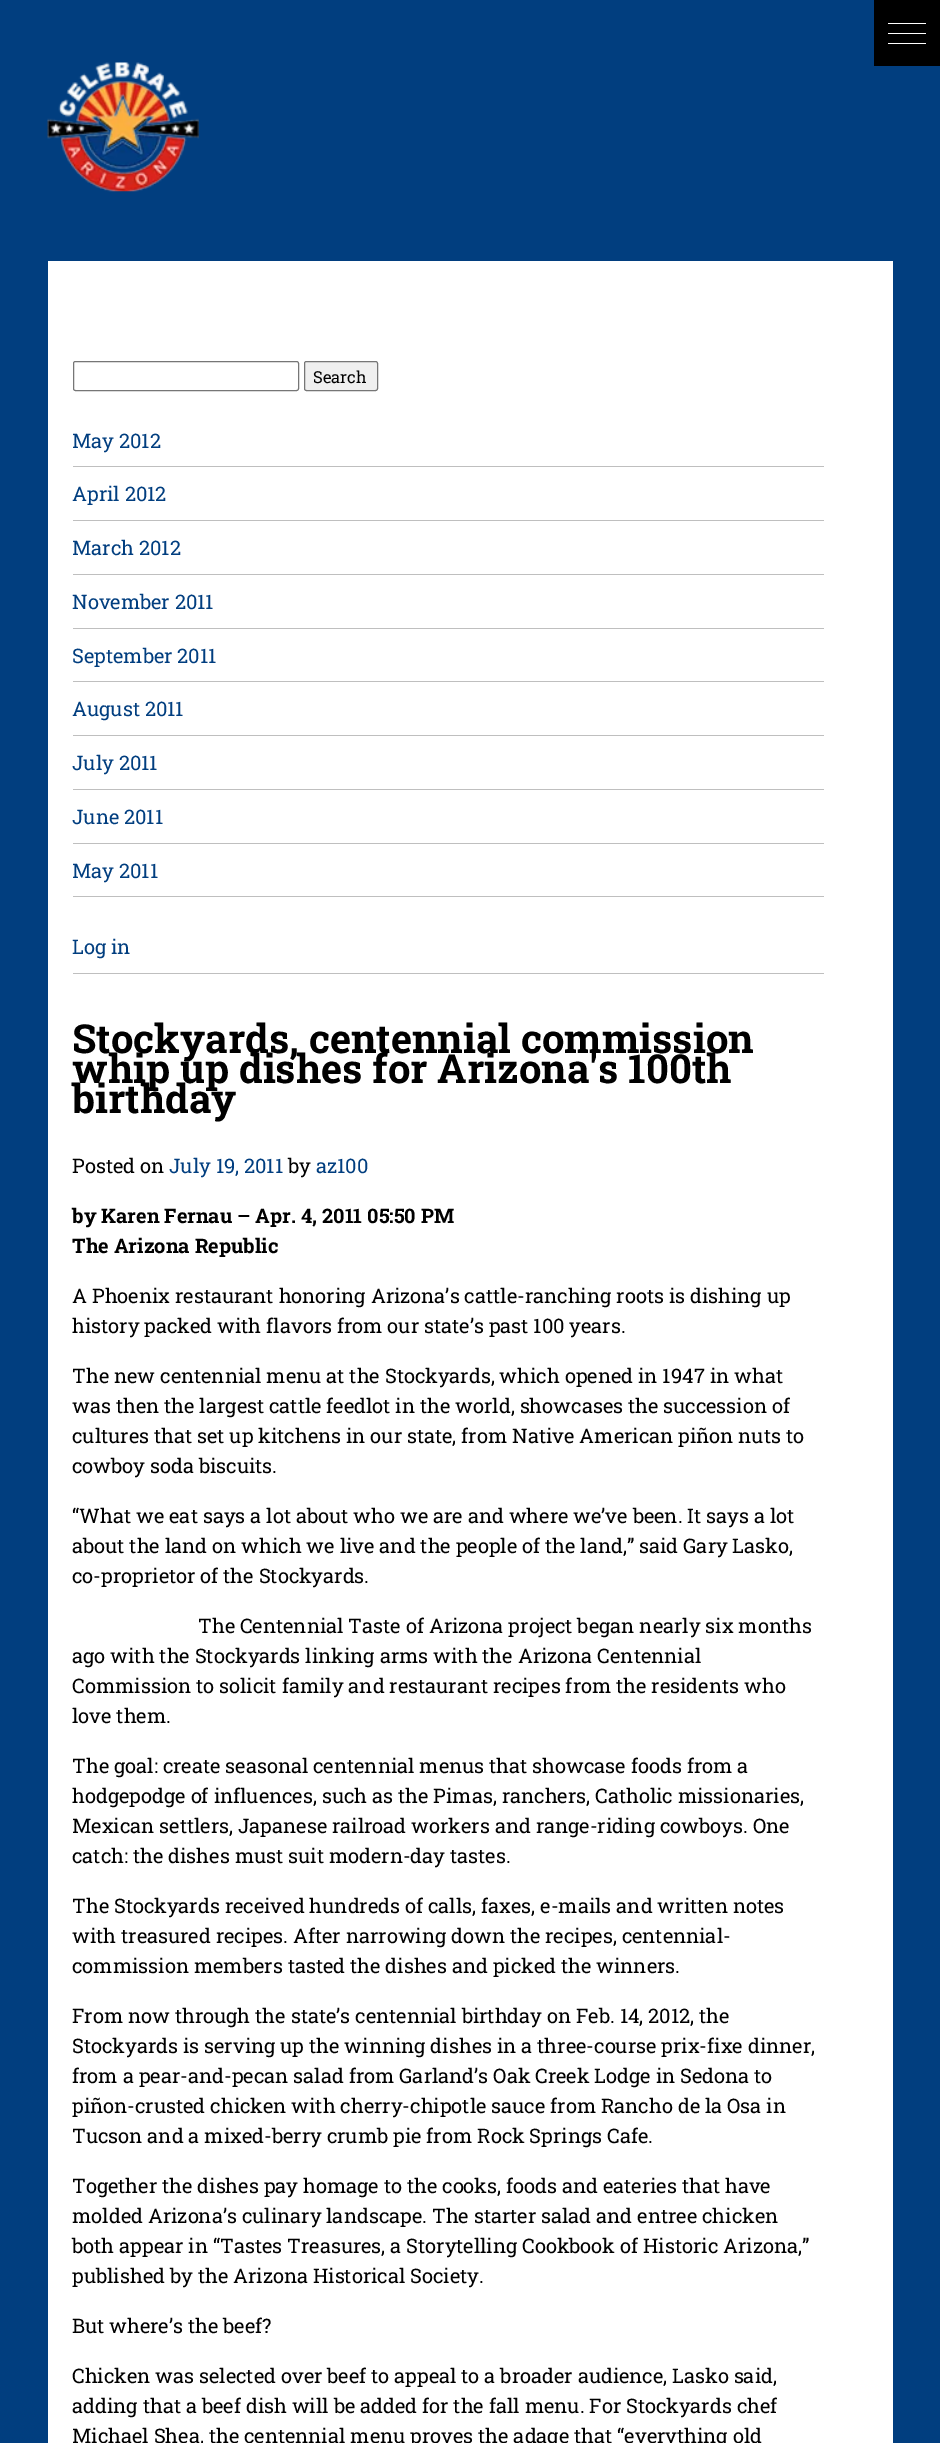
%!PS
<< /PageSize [940 2443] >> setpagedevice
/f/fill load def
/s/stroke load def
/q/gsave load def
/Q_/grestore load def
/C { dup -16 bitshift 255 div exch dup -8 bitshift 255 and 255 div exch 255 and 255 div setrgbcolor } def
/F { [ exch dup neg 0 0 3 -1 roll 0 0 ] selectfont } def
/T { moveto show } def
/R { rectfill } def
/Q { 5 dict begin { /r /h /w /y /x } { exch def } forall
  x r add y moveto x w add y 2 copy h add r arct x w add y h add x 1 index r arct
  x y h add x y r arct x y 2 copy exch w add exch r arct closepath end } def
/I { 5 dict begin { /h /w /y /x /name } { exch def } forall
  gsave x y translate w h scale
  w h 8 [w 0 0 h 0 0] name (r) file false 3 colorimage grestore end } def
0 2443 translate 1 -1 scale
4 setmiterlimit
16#013E7F C
0 0 940 2443 R
16#000000 C
874 0 66 66 R
16#FFFFFF C
888 33 38 1 R
888 23 38 1 R
888 43 38 1 R
(1.rgb) 47 62 152 130 I
48 261 845 2182 R
16#767676 C
73.5 361.5 225 29 2 Q s
16#EFEFEF C
304.5 361.5 73 29 2 Q q f Q_
16#767676 C
s
/RobotoSlab-Regular 16.5 F
16#000000 C
(Search) 313 383 T
16#BFBFBF C
73 466 751 1 R
/RobotoSlab-Regular 20 F
16#013E7F C
(May 2012) 72 448 T
16#BFBFBF C
73 520 751 1 R
16#013E7F C
(April 2012) 72 501 T
16#BFBFBF C
73 574 751 1 R
16#013E7F C
(March 2012) 72 555 T
16#BFBFBF C
73 628 751 1 R
16#013E7F C
(November 2011) 72 609 T
16#BFBFBF C
73 681 751 1 R
16#013E7F C
(September 2011) 72 663 T
16#BFBFBF C
73 735 751 1 R
16#013E7F C
(August 2011) 72 716 T
16#BFBFBF C
73 789 751 1 R
16#013E7F C
(July 2011) 72 770 T
16#BFBFBF C
73 843 751 1 R
16#013E7F C
(June 2011) 72 824 T
16#BFBFBF C
73 896 751 1 R
16#013E7F C
(May 2011) 72 878 T
16#BFBFBF C
73 973 751 1 R
16#013E7F C
(Log in) 72 954 T
/RobotoSlab-Bold 40 F
16#000000 C
(Stockyards, centennial commission) 72 1053 T
(whip up dishes for Arizona's 100th) 72 1083 T
(birthday) 72 1113 T
/RobotoSlab-Regular 20 F
(Posted on) 72 1173 T
16#013E7F C
(July 19, 2011) 169 1173 T
16#000000 C
(by) 288 1173 T
16#013E7F C
(az100) 316 1173 T
/RobotoSlab-Bold 20 F
16#000000 C
(by Karen Fernau – Apr. 4, 2011 05:50 PM) 72 1223 T
(The Arizona Republic) 72 1253 T
/RobotoSlab-Regular 20 F
(A Phoenix restaurant honoring Arizona’s cattle-ranching roots is dishing up) 72 1303 T
(history packed with flavors from our state’s past 100 years.) 72 1333 T
(The new centennial menu at the Stockyards, which opened in 1947 in what) 72 1383 T
(was then the largest cattle feedlot in the world, showcases the succession of) 72 1413 T
(cultures that set up kitchens in our state, from Native American piñon nuts to) 72 1443 T
(cowboy soda biscuits.) 72 1473 T
(“What we eat says a lot about who we are and where we’ve been. It says a lot) 72 1523 T
(about the land on which we live and the people of the land,” said Gary Lasko,) 72 1553 T
(co-proprietor of the Stockyards.) 72 1583 T
(The Centennial Taste of Arizona project began nearly six months) 198 1633 T
(ago with the Stockyards linking arms with the Arizona Centennial) 72 1663 T
(Commission to solicit family and restaurant recipes from the residents who) 72 1693 T
(love them.) 72 1723 T
(The goal: create seasonal centennial menus that showcase foods from a) 72 1773 T
(hodgepodge of influences, such as the Pimas, ranchers, Catholic missionaries,) 72 1803 T
(Mexican settlers, Japanese railroad workers and range-riding cowboys. One) 72 1833 T
(catch: the dishes must suit modern-day tastes.) 72 1863 T
(The Stockyards received hundreds of calls, faxes, e-mails and written notes) 72 1913 T
(with treasured recipes. After narrowing down the recipes, centennial-) 72 1943 T
(commission members tasted the dishes and picked the winners.) 72 1973 T
(From now through the state’s centennial birthday on Feb. 14, 2012, the) 72 2023 T
(Stockyards is serving up the winning dishes in a three-course prix-fixe dinner,) 72 2053 T
(from a pear-and-pecan salad from Garland’s Oak Creek Lodge in Sedona to) 72 2083 T
(piñon-crusted chicken with cherry-chipotle sauce from Rancho de la Osa in) 72 2113 T
(Tucson and a mixed-berry crumb pie from Rock Springs Cafe.) 72 2143 T
(Together the dishes pay homage to the cooks, foods and eateries that have) 72 2193 T
(molded Arizona’s culinary landscape. The starter salad and entree chicken) 72 2223 T
(both appear in “Tastes Treasures, a Storytelling Cookbook of Historic Arizona,”) 72 2253 T
(published by the Arizona Historical Society.) 72 2283 T
(But where’s the beef?) 72 2333 T
(Chicken was selected over beef to appeal to a broader audience, Lasko said,) 72 2383 T
(adding that a beef dish will be added for the fall menu. For Stockyards chef) 72 2413 T
(Michael Shea, the centennial menu proves the adage that “everything old) 72 2443 T
showpage
